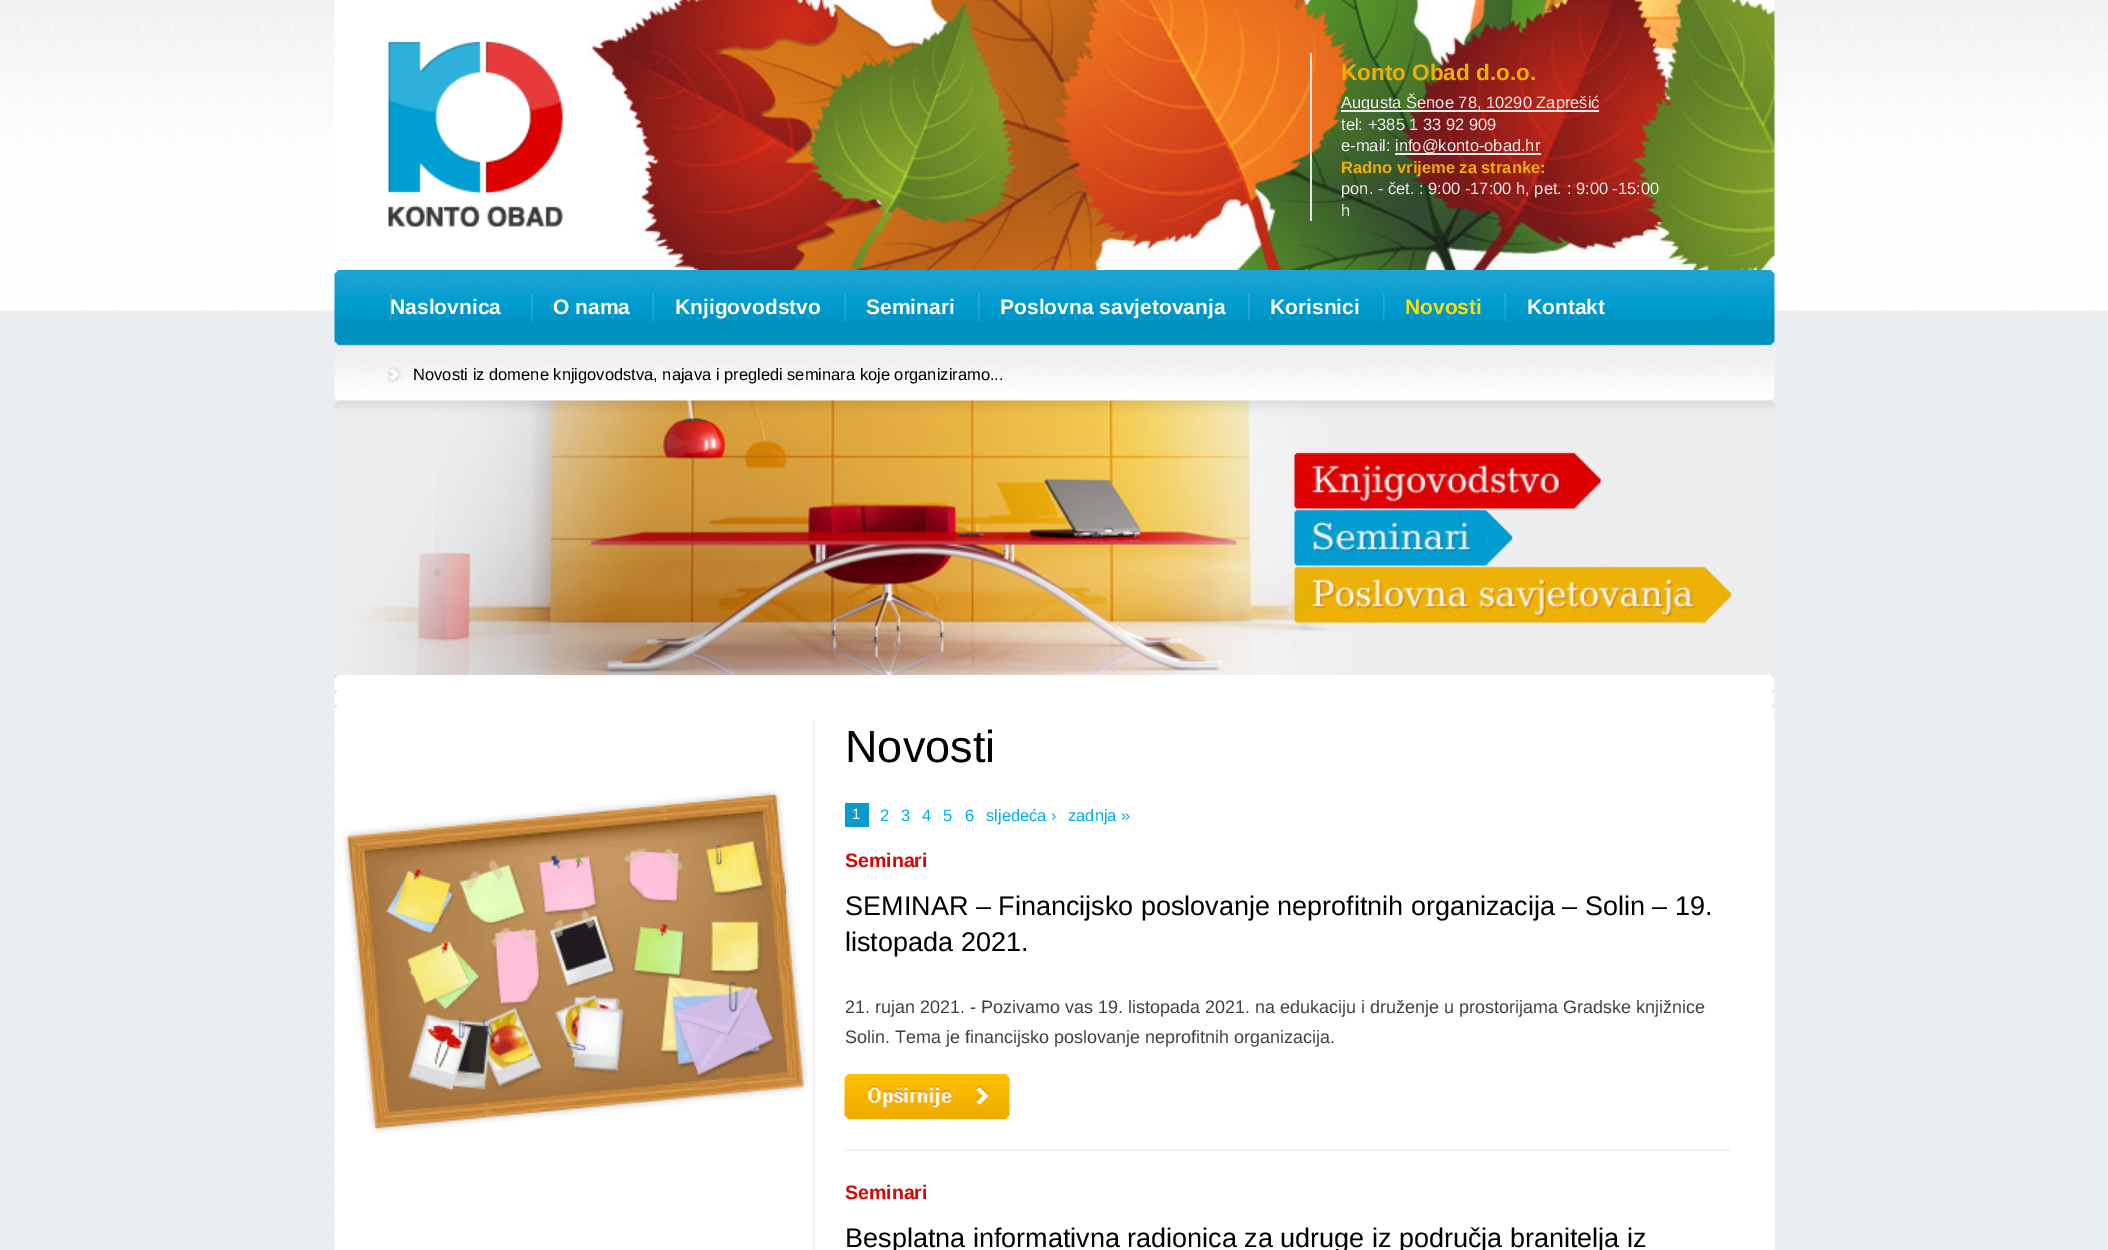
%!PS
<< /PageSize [2108 1250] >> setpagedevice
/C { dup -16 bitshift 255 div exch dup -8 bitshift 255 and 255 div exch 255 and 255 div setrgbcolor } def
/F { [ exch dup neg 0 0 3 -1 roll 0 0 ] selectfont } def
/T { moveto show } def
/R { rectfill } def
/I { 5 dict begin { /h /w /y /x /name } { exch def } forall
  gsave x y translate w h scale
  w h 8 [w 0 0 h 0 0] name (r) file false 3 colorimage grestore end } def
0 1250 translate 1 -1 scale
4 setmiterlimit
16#EBEEF0 C
0 0 2108 1250 R
(1.rgb) 0 0 2108 311 I
(2.rgb) 334 0 1441 270 I
(3.rgb) 388 41 175 186 I
16#E6E6E6 C
1310 53 2 168 R
/LiberationSans-Bold 22.5 F
16#EDB007 C
(Konto Obad d.o.o.) 1341 80 T
16#EDEDED C
1341 110 258 2 R
/LiberationSans-Regular 16.5 F
(Augusta Šenoe 78, 10290 Zaprešić) 1341 108 T
(tel: +385 1 33 92 909) 1341 130 T
(e-mail:) 1341 151 T
1395 153 146 2 R
(info@konto-obad.hr) 1395 151 T
/LiberationSans-Bold 16.5 F
16#EDB007 C
(Radno vrijeme za stranke:) 1341 173 T
/LiberationSans-Regular 16.5 F
16#EDEDED C
(pon. - čet. : 9:00 -17:00 h, pet. : 9:00 -15:00) 1341 194 T
(h) 1341 216 T
(4.rgb) 334 270 1441 131 I
(5.rgb) 390 294 2 27 I
/LiberationSans-Bold 21 F
16#FFFFFF C
(Naslovnica) 390 314 T
(6.rgb) 531 294 2 27 I
(O nama) 553 314 T
(7.rgb) 652 294 2 27 I
(Knjigovodstvo) 675 314 T
(8.rgb) 844 294 2 27 I
(Seminari) 866 314 T
(9.rgb) 978 294 2 27 I
(Poslovna savjetovanja) 1000 314 T
(10.rgb) 1248 294 2 27 I
(Korisnici) 1270 314 T
(11.rgb) 1383 294 2 27 I
16#FEDD00 C
(Novosti) 1405 314 T
(12.rgb) 1504 294 2 27 I
16#FFFFFF C
(Kontakt) 1527 314 T
(13.rgb) 387 366 15 17 I
/LiberationSans-Regular 16.5 F
16#000000 C
(Novosti iz domene knjigovodstva, najava i pregledi seminara koje organiziramo...) 413 380 T
(14.rgb) 334 400 1441 275 I
(15.rgb) 334 675 1441 575 I
16#FFFFFF C
335 720 1440 530 R
(16.rgb) 342 789 466 345 I
16#F2F2F2 C
813 720 2 530 R
/LiberationSans-Regular 45 F
16#000000 C
(Novosti) 845 762 T
16#089BCE C
845 803 24 24 R
/LiberationSans-Regular 15 F
16#FFFFFF C
(1) 852 819 T
/LiberationSans-Regular 16.5 F
16#00AEEF C
(2) 880 821 T
(3) 901 821 T
(4) 922 821 T
(5) 943 821 T
(6) 965 821 T
(sljedeća ›) 986 821 T
(zadnja ») 1068 821 T
16#F2F2F2 C
845 1149 885 2 R
/LiberationSans-Bold 19.5 F
16#D60606 C
(Seminari) 845 867 T
/LiberationSans-Regular 27 F
16#000000 C
(SEMINAR – Financijsko poslovanje neprofitnih organizacija – Solin – 19.) 845 915 T
(listopada 2021.) 845 951 T
/LiberationSans-Regular 18 F
16#404040 C
(21. rujan 2021. - Pozivamo vas 19. listopada 2021. na edukaciju i druženje u prostorijama Gradske knjižnice) 845 1013 T
(Solin. Tema je financijsko poslovanje neprofitnih organizacija.) 845 1043 T
(17.rgb) 844 1074 166 45 I
/LiberationSans-Bold 19.5 F
16#D60606 C
(Seminari) 845 1199 T
/LiberationSans-Regular 27 F
16#000000 C
(Besplatna informativna radionica za udruge iz područja branitelja iz) 845 1247 T
showpage
